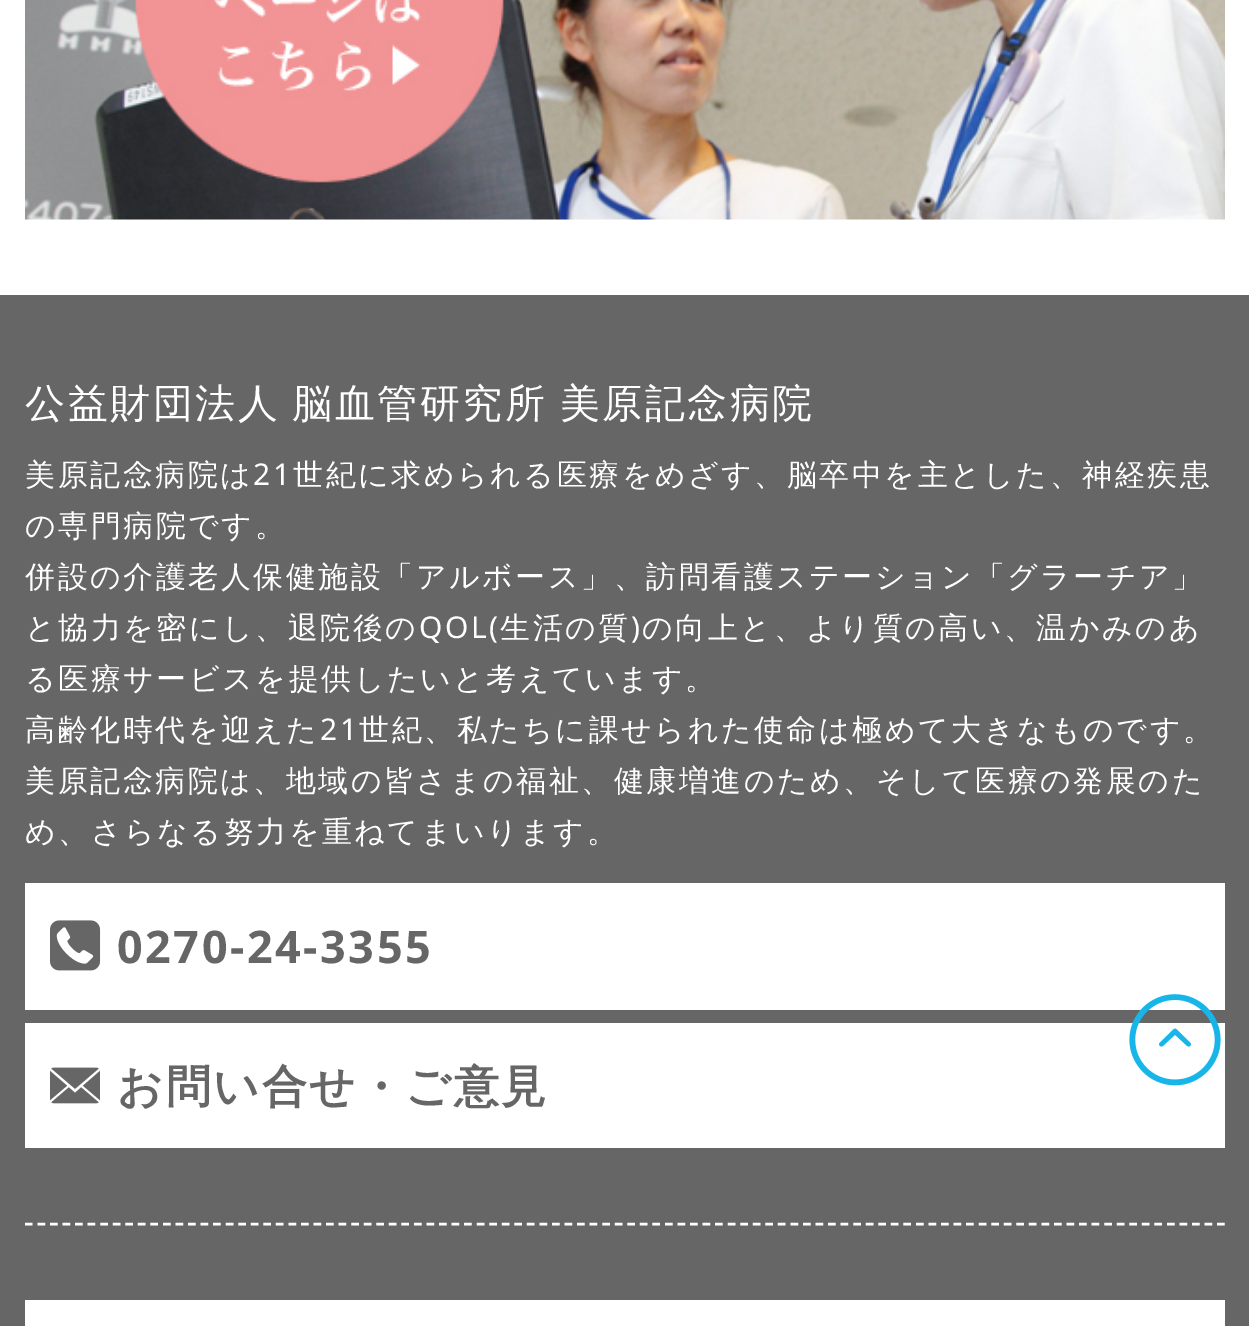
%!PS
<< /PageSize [1249 1326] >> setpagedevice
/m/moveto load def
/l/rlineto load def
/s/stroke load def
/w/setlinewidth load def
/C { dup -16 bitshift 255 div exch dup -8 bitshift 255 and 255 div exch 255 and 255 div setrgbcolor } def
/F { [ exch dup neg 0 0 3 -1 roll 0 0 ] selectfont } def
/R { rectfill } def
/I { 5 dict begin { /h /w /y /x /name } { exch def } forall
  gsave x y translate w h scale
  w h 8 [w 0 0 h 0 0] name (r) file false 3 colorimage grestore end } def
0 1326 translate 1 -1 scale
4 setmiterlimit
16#FFFFFF C
0 0 1249 1326 R
(1.rgb) 25 0 1200 220 I
16#666666 C
0 295 1249 1031 R
/WenQuanYiZenHei-Medium 40 F
16#FFFFFF C
25 417 m -2 0 32 2.5 0 (公益財団法人 脳血管研究所 美原記念病院) awidthshow
/WenQuanYiZenHei-Medium 30 F
25 485 m 2.5 0 (美原記念病院は) ashow
/NotoSans-Regular 30 F
253 485 m 2.5 0 (21) ashow
/WenQuanYiZenHei-Medium 30 F
293 485 m 2.5 0 (世紀に求められる医療をめざす、脳卒中を主とした、神経疾患) ashow
25 536 m 2.5 0 (の専門病院です。) ashow
25 587 m 2.5 0 (併設の介護老人保健施設「アルボース」、訪問看護ステーション「グラーチア」) ashow
25 638 m 2.5 0 (と協力を密にし、退院後の) ashow
/NotoSans-Regular 30 F
419 638 m 2.5 0 (QOL\() ashow
/WenQuanYiZenHei-Medium 30 F
500 638 m 2.5 0 (生活の質 の向上と、より質の高い、温かみのあ) ashow
/NotoSans-Regular 30 F
631 638 m 2.5 0 (\)) ashow
/WenQuanYiZenHei-Medium 30 F
25 689 m 2.5 0 (る医療サービスを提供したいと考えています。) ashow
25 740 m 2.5 0 (高齢化時代を迎えた) ashow
/NotoSans-Regular 30 F
320 740 m 2.5 0 (21) ashow
/WenQuanYiZenHei-Medium 30 F
359 740 m 2.5 0 (世紀、私たちに課せられた使命は極めて大きなものです。) ashow
25 791 m 2.5 0 (美原記念病院は、地域の皆さまの福祉、健康増進のため、そして医療の発展のた) ashow
25 842 m 2.5 0 (め、さらなる努力を重ねてまいります。) ashow
25 883 1200 127 R
(2.rgb) 50 920 51 51 I
/NotoSans-Bold 45 F
16#666666 C
117 963 m 2.5 0 (0270-24-3355) ashow
16#FFFFFF C
25 1023 1200 125 R
(3.rgb) 50 1067 50 37 I
/WenQuanYiZenHei-Bold 45 F
16#666666 C
117 1102 m 2.5 0 (お問い合せ・ご意見) ashow
16#FFFFFF C
2.5 w
[7.5 5.05] 0 setdash
25 1224 m 1200 0 l s
25 1300 1200 26 R
(4.rgb) 1129 994 92 92 I
showpage
